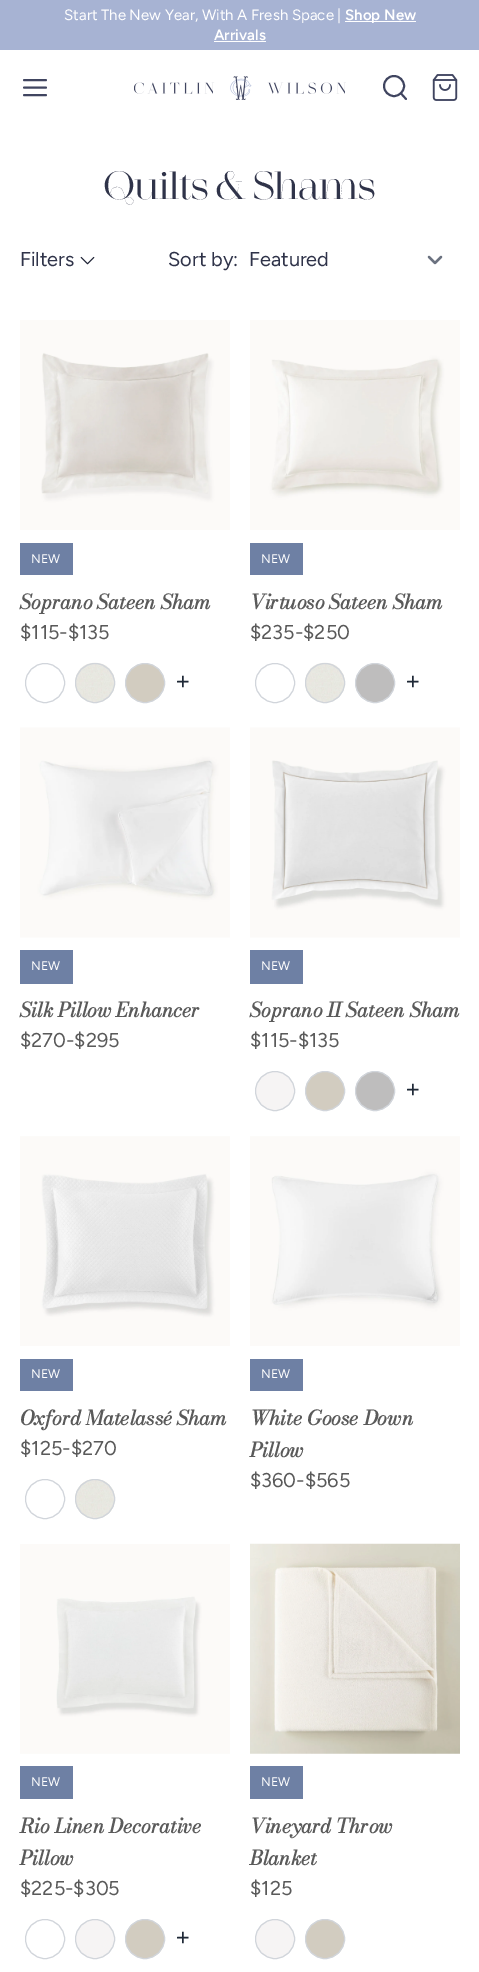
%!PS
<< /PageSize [479 1972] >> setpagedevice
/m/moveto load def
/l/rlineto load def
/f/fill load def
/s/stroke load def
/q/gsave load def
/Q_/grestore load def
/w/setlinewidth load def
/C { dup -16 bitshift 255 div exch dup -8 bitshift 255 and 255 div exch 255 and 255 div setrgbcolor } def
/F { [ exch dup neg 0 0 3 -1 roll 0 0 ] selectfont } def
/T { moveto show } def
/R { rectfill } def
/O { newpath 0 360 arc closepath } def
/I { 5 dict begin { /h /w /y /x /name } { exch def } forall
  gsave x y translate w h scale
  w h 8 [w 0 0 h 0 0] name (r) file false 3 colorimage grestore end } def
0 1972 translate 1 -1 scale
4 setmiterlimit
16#FFFFFF C
0 0 479 1972 R
16#A7B3D3 C
0 0 479 50 R
/Figtree-Regular 15 F
16#FFFFFF C
(Start The New Year, With A Fresh Space |) 64 20 T
345 21 71 1 R
/Figtree-SemiBold 15 F
(Shop New) 345 20 T
(Arrivals) 214 40 T
214 41 52 1 R
16#404560 C
1.9 w
1 setlinecap
1 setlinejoin
24 87.5 m 22 0 l 24 80 m 22 0 l 24 95 m 22 0 l s
(1.rgb) 134 76 212 24 I
0 setlinecap
0 setlinejoin
394 86 10 O s
1 setlinecap
1 setlinejoin
406 99 m -5 -5.5 l s
(2.rgb) 432 74 26 27 I
/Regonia-Regular 37.5 F
16#2F3349 C
(Quilts & Shams) 104 199 T
/Figtree-Regular 20 F
(Filters) 20 266 T
(3.rgb) 80 256 15 9 I
(Sort by:) 168 266 T
16#6B7280 C
2.2 w
429 257 m 6 6 l 6 -6 l s
16#2F3349 C
(Featured) 249 266 T
(4.rgb) 20 320 210 210 I
16#6E80A4 C
20 543 53 32 R
/Figtree-Regular 12.5 F
16#FFFFFF C
(NEW) 31 563 T
/BodoniModa-BoldItalic 20 F
16#5A5A5A C
(Soprano Sateen Sham) 20 609 T
/Figtree-Regular 20 F
($115-$135) 20 639 T
16#D1D5DB C
1 w
0 setlinecap
0 setlinejoin
45 683 19.5 O s
(5.rgb) 75 662 40 41 I
95 683 19.5 O s
16#D2CCC0 C
145 683 19.5 O q f Q_
16#D1D5DB C
s
/Figtree-Regular 25 F
16#1F2937 C
(+) 175 689 T
(6.rgb) 250 320 210 210 I
16#6E80A4 C
250 543 53 32 R
/Figtree-Regular 12.5 F
16#FFFFFF C
(NEW) 261 563 T
/BodoniModa-BoldItalic 20 F
16#5A5A5A C
(Virtuoso Sateen Sham) 250 609 T
/Figtree-Regular 20 F
($235-$250) 250 639 T
16#D1D5DB C
275 683 19.5 O s
(5.rgb) 305 662 40 41 I
325 683 19.5 O s
16#BEBDBD C
375 683 19.5 O q f Q_
16#D1D5DB C
s
/Figtree-Regular 25 F
16#1F2937 C
(+) 405 689 T
(7.rgb) 20 727 210 211 I
16#6E80A4 C
20 950 53 34 R
/Figtree-Regular 12.5 F
16#FFFFFF C
(NEW) 31 970 T
/BodoniModa-BoldItalic 20 F
16#5A5A5A C
(Silk Pillow Enhancer) 20 1017 T
/Figtree-Regular 20 F
($270-$295) 20 1047 T
(8.rgb) 250 727 210 211 I
16#6E80A4 C
250 950 53 34 R
/Figtree-Regular 12.5 F
16#FFFFFF C
(NEW) 261 970 T
/BodoniModa-BoldItalic 20 F
16#5A5A5A C
(Soprano II Sateen Sham) 250 1017 T
/Figtree-Regular 20 F
($115-$135) 250 1047 T
16#F6F4F4 C
275 1091 19.5 O q f Q_
16#D1D5DB C
s
16#D2CCC0 C
325 1091 19.5 O q f Q_
16#D1D5DB C
s
16#BEBDBD C
375 1091 19.5 O q f Q_
16#D1D5DB C
s
/Figtree-Regular 25 F
16#1F2937 C
(+) 405 1097 T
(9.rgb) 20 1136 210 210 I
16#6E80A4 C
20 1359 53 32 R
/Figtree-Regular 12.5 F
16#FFFFFF C
(NEW) 31 1378 T
/BodoniModa-BoldItalic 20 F
16#5A5A5A C
(Oxford Matelassé Sham) 20 1425 T
/Figtree-Regular 20 F
($125-$270) 20 1455 T
16#D1D5DB C
45 1499 19.5 O s
(10.rgb) 75 1479 40 40 I
95 1499 19.5 O s
(11.rgb) 250 1136 210 210 I
16#6E80A4 C
250 1359 53 32 R
/Figtree-Regular 12.5 F
16#FFFFFF C
(NEW) 261 1378 T
/BodoniModa-BoldItalic 20 F
16#5A5A5A C
(White Goose Down) 250 1425 T
(Pillow) 250 1457 T
/Figtree-Regular 20 F
($360-$565) 250 1487 T
(12.rgb) 20 1544 210 210 I
16#6E80A4 C
20 1766 53 33 R
/Figtree-Regular 12.5 F
16#FFFFFF C
(NEW) 31 1786 T
/BodoniModa-BoldItalic 20 F
16#5A5A5A C
(Rio Linen Decorative) 20 1833 T
(Pillow) 20 1865 T
/Figtree-Regular 20 F
($225-$305) 20 1895 T
16#D1D5DB C
45 1939 19.5 O s
16#F6F4F4 C
95 1939 19.5 O q f Q_
16#D1D5DB C
s
16#D2CCC0 C
145 1939 19.5 O q f Q_
16#D1D5DB C
s
/Figtree-Regular 25 F
16#1F2937 C
(+) 175 1945 T
(13.rgb) 250 1543 210 211 I
16#6E80A4 C
250 1766 53 33 R
/Figtree-Regular 12.5 F
16#FFFFFF C
(NEW) 261 1786 T
/BodoniModa-BoldItalic 20 F
16#5A5A5A C
(Vineyard Throw) 250 1833 T
(Blanket) 250 1865 T
/Figtree-Regular 20 F
($125) 250 1895 T
16#F6F4F4 C
275 1939 19.5 O q f Q_
16#D1D5DB C
s
16#D2CCC0 C
325 1939 19.5 O q f Q_
16#D1D5DB C
s
showpage
